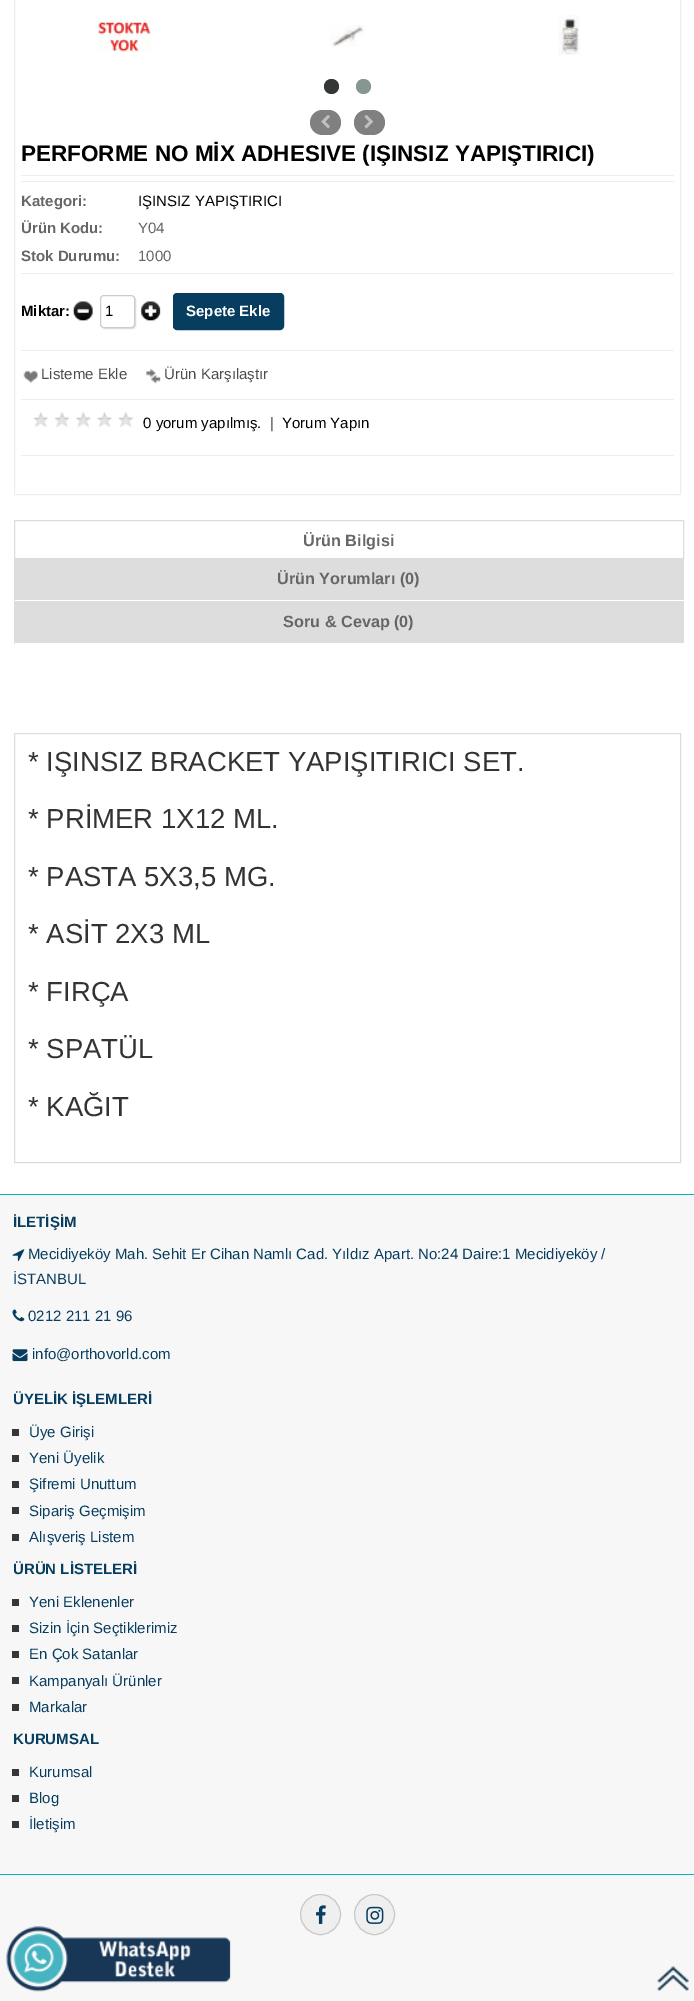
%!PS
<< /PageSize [694 2001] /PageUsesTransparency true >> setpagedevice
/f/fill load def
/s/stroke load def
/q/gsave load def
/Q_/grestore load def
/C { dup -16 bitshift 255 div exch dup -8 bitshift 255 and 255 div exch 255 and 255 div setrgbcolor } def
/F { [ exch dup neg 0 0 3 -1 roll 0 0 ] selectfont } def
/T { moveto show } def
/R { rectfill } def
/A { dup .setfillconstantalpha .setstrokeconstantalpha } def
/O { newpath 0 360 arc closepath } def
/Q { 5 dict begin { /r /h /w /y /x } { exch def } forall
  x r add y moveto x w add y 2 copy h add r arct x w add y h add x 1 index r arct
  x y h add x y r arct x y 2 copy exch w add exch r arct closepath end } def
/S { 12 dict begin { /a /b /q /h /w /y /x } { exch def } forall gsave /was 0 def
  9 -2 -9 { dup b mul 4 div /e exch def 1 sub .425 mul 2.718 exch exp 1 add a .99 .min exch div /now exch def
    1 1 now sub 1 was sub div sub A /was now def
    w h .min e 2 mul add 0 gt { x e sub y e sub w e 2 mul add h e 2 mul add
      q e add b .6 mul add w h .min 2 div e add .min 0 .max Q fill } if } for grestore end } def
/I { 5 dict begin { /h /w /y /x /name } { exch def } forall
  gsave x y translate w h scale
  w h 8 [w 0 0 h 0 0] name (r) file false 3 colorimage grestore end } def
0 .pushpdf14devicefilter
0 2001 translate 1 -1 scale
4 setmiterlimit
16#FFFFFF C
0 0 694 2001 R
16#EEEEEE C
14.5 -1.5 666 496 .5 Q s
(1.rgb) 98 21 53 31 I
(2.rgb) 330 25 36 22 I
(3.rgb) 558 15 22 40 I
16#353636 C
331.5 86.5 7.5 O f
16#869791 C
363.5 86.5 7.5 O f
16#808080 C
310 110 31 25 12.5 Q f
(4.rgb) 321 115 9 14 I
354 110 31 25 12.5 Q f
(5.rgb) 364 115 10 14 I
/LiberationSans-Bold 22.5 F
16#000000 C
(PERFORME NO MİX ADHESIVE \(IŞINSIZ YAPIŞTIRICI\)) 21 161 T
16#EEEEEE C
21 175 653 1 R
21 181 653 1 R
/LiberationSans-Bold 15 F
16#666666 C
(Kategori:) 21 206 T
/LiberationSans-Regular 15 F
16#000000 C
(IŞINSIZ YAPIŞTIRICI) 138 206 T
/LiberationSans-Bold 15 F
16#666666 C
(Ürün Kodu:) 21 233 T
/LiberationSans-Regular 15 F
(Y04) 138 233 T
/LiberationSans-Bold 15 F
(Stok Durumu:) 21 261 T
/LiberationSans-Regular 15 F
(1000) 138 261 T
16#EEEEEE C
21 273 653 1 R
/LiberationSans-Bold 15 F
16#000000 C
(Miktar:) 21 316 T
(6.rgb) 72 301 21 20 I
16#DDDDDD C
101 296 35 33 4 .5 1 S
16#FFFFFF C
100.5 295.5 34 32 3.5 Q q f Q_
16#CCCCCC C
s
/LiberationSans-Regular 15 F
16#000000 C
(1) 105 316 T
(7.rgb) 140 301 21 20 I
16#073E60 C
173.5 293.5 110 36 3.5 Q q f Q_
s
/LiberationSans-Bold 15 F
16#FFFFFF C
(Sepete Ekle) 186 316 T
16#EEEEEE C
21 350 653 1 R
21 399 653 1 R
(8.rgb) 23 370 15 13 I
/LiberationSans-Regular 15 F
16#4D4D4D C
(Listeme Ekle) 41 379 T
(9.rgb) 146 368 15 16 I
(Ürün Karşılaştır) 164 379 T
(10.rgb) 33 411 101 17 I
16#000000 C
(0 yorum yapılmış.) 143 428 T
16#4D4D4D C
(|) 270 428 T
16#000000 C
(Yorum Yapın) 282 428 T
16#EEEEEE C
21 455 653 1 R
16#DDDDDD C
14.5 520.5 669 38 rectstroke
/LiberationSans-Bold 16.25 F
16#666666 C
(Ürün Bilgisi) 303 546 T
16#DDDDDD C
15 559 669 41 R
14 559 1 85 R
16#666666 C
(Ürün Yorumları \(0\)) 277 584 T
16#DDDDDD C
15 601 669 42 R
16#666666 C
(Soru & Cevap \(0\)) 283 627 T
16#DDDDDD C
14.5 733.5 666 429 rectstroke
/LiberationSans-Regular 27.5 F
16#333333 C
(* IŞINSIZ BRACKET YAPIŞITIRICI SET.) 28 771 T
(* PRİMER 1X12 ML.) 28 828 T
(* PASTA 5X3,5 MG.) 28 886 T
(* ASİT 2X3 ML) 28 943 T
(* FIRÇA) 28 1001 T
(* SPATÜL) 28 1058 T
(* KAĞIT) 28 1116 T
16#F7F7F7 C
0 1195 694 806 R
16#01B5C2 C
0 1194 694 1 R
/LiberationSans-Bold 15 F
16#073E60 C
(İLETİŞİM) 13 1227 T
(11.rgb) 12 1249 13 12 I
/LiberationSans-Regular 15 F
(Mecidiyeköy Mah. Sehit Er Cihan Namlı Cad. Yıldız Apart. No:24 Daire:1 Mecidiyeköy /) 28 1259 T
(İSTANBUL) 13 1284 T
(12.rgb) 12 1309 13 13 I
(0212 211 21 96) 28 1321 T
(13.rgb) 12 1349 16 13 I
(info@orthovorld.com) 32 1359 T
/LiberationSans-Bold 15 F
(ÜYELİK İŞLEMLERİ) 13 1404 T
16#353637 C
12 1429 7 7 R
/LiberationSans-Regular 15 F
16#073E60 C
(Üye Girişi) 29 1437 T
16#353637 C
12 1455 7 7 R
16#073E60 C
(Yeni Üyelik) 29 1463 T
16#353637 C
12 1481 7 7 R
16#073E60 C
(Şifremi Unuttum) 29 1489 T
16#353637 C
12 1507 7 7 R
16#073E60 C
(Sipariş Geçmişim) 29 1516 T
16#353637 C
12 1534 7 7 R
16#073E60 C
(Alışveriş Listem) 29 1542 T
/LiberationSans-Bold 15 F
(ÜRÜN LİSTELERİ) 13 1574 T
16#353637 C
12 1599 7 7 R
/LiberationSans-Regular 15 F
16#073E60 C
(Yeni Eklenenler) 29 1607 T
16#353637 C
12 1625 7 7 R
16#073E60 C
(Sizin İçin Seçtiklerimiz) 29 1633 T
16#353637 C
12 1651 7 7 R
16#073E60 C
(En Çok Satanlar) 29 1659 T
16#353637 C
12 1677 7 7 R
16#073E60 C
(Kampanyalı Ürünler) 29 1686 T
16#353637 C
12 1704 7 7 R
16#073E60 C
(Markalar) 29 1712 T
/LiberationSans-Bold 15 F
(KURUMSAL) 13 1744 T
16#353637 C
12 1769 7 7 R
/LiberationSans-Regular 15 F
16#073E60 C
(Kurumsal) 29 1777 T
16#353637 C
12 1795 7 7 R
16#073E60 C
(Blog) 29 1803 T
16#353637 C
12 1821 7 7 R
16#073E60 C
(İletişim) 29 1829 T
16#01B5C2 C
0 1874 694 1 R
16#EFEFEF C
320.5 1914.5 20 O q f Q_
16#C8C8C8 C
s
(14.rgb) 316 1905 10 19 I
16#EFEFEF C
374.5 1914.5 20 O q f Q_
16#C8C8C8 C
s
(15.rgb) 366 1906 18 18 I
(16.rgb) 6 1926 225 66 I
(17.rgb) 657 1966 32 26 I
.poppdf14devicefilter showpage
